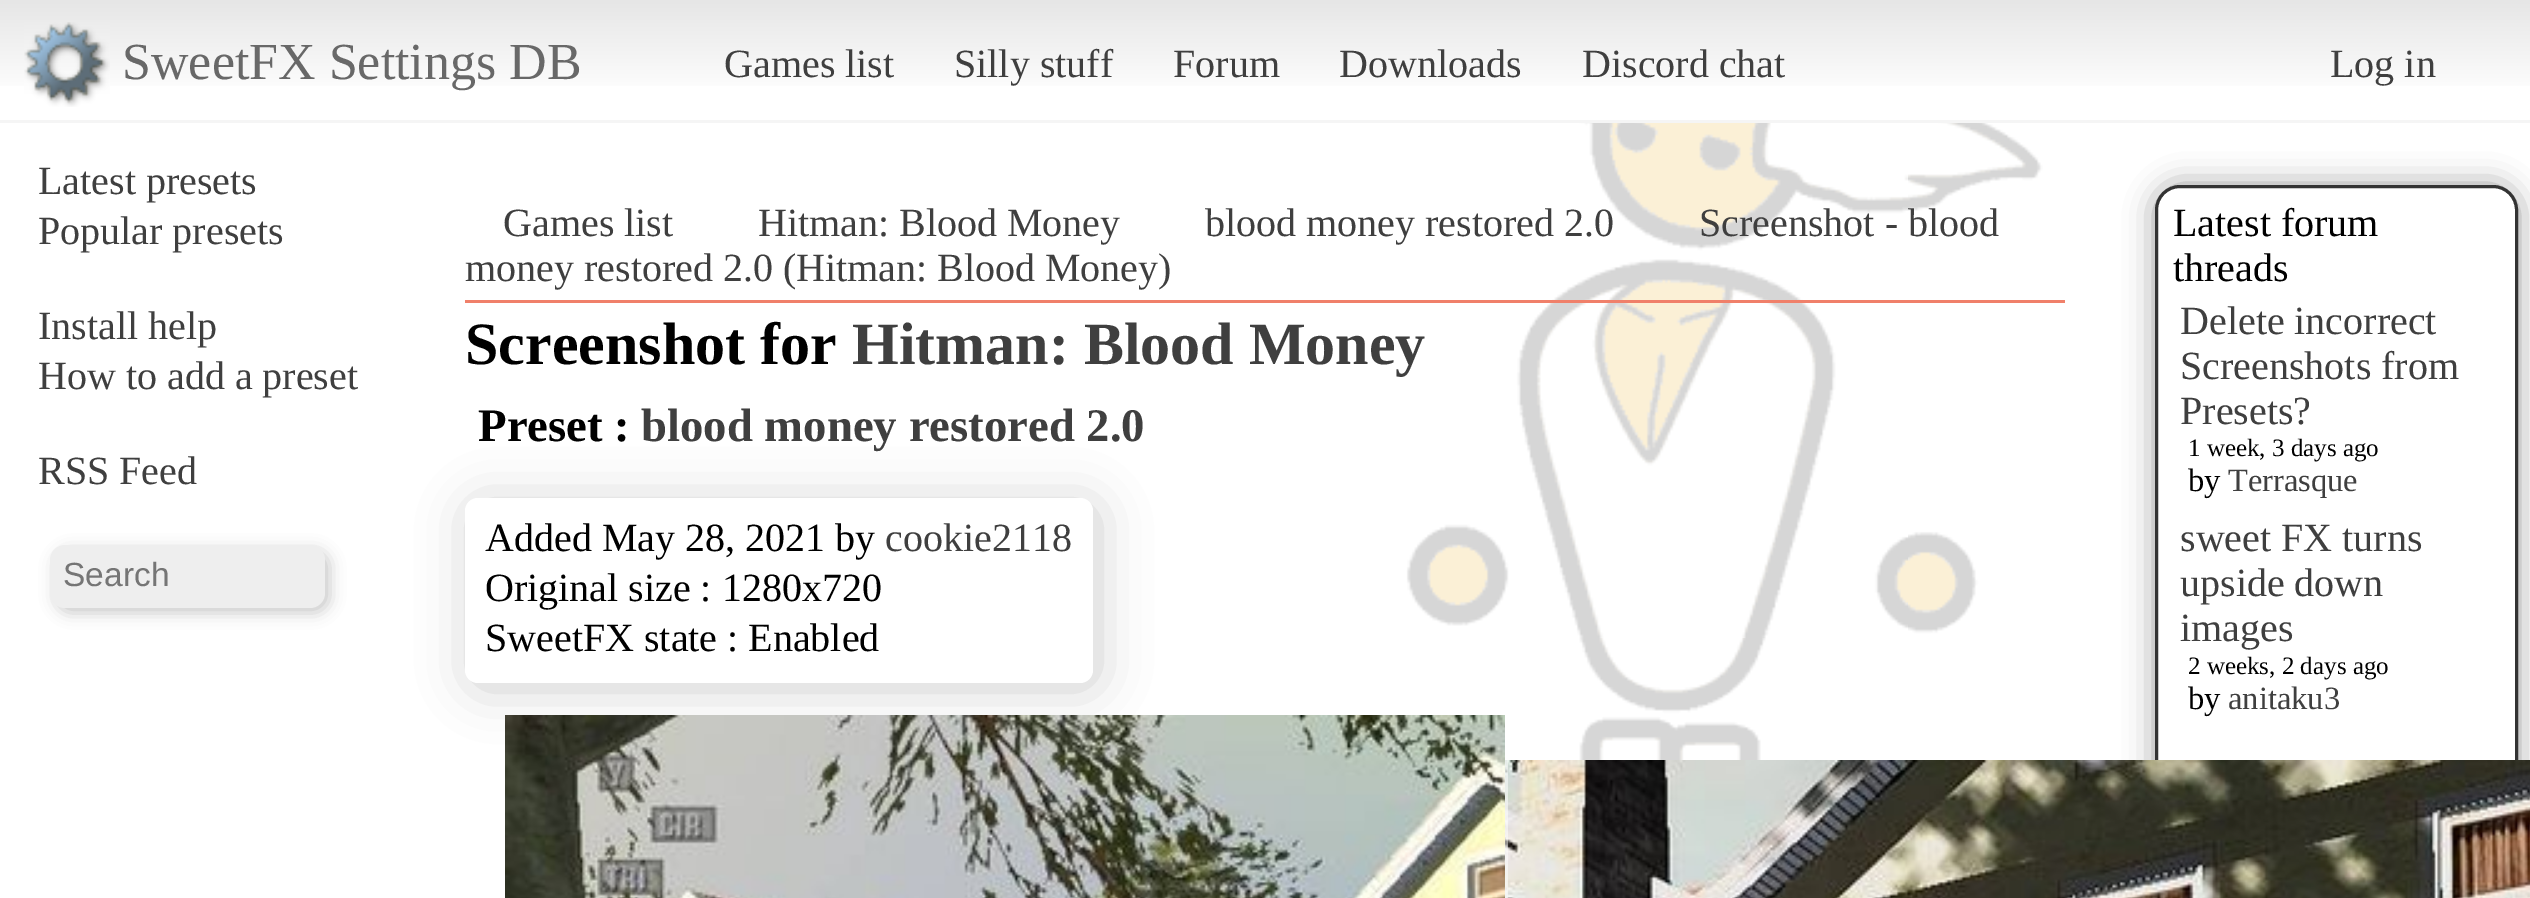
%!PS
<< /PageSize [2530 898] /PageUsesTransparency true >> setpagedevice
/m/moveto load def
/l/rlineto load def
/c/rcurveto load def
/z/closepath load def
/f/fill load def
/s/stroke load def
/q/gsave load def
/Q_/grestore load def
/w/setlinewidth load def
/C { dup -16 bitshift 255 div exch dup -8 bitshift 255 and 255 div exch 255 and 255 div setrgbcolor } def
/F { [ exch dup neg 0 0 3 -1 roll 0 0 ] selectfont } def
/T { moveto show } def
/R { rectfill } def
/A { dup .setfillconstantalpha .setstrokeconstantalpha } def
/Q { 5 dict begin { /r /h /w /y /x } { exch def } forall
  x r add y moveto x w add y 2 copy h add r arct x w add y h add x 1 index r arct
  x y h add x y r arct x y 2 copy exch w add exch r arct closepath end } def
/S { 12 dict begin { /a /b /q /h /w /y /x } { exch def } forall gsave /was 0 def
  9 -2 -9 { dup b mul 4 div /e exch def 1 sub .425 mul 2.718 exch exp 1 add a .99 .min exch div /now exch def
    1 1 now sub 1 was sub div sub A /was now def
    w h .min e 2 mul add 0 gt { x e sub y e sub w e 2 mul add h e 2 mul add
      q e add b .6 mul add w h .min 2 div e add .min 0 .max Q fill } if } for grestore end } def
/I { 5 dict begin { /h /w /y /x /name } { exch def } forall
  gsave x y translate w h scale
  w h 8 [w 0 0 h 0 0] name (r) file false 3 colorimage grestore end } def
0 .pushpdf14devicefilter
0 898 translate 1 -1 scale
4 setmiterlimit
16#FFFFFF C
0 0 2530 898 R
(1.rgb) 1406 123 637 637 I
q 0 0 m 2530 0 l 0 86 l -2530 0 l z clip newpath
<< /ShadingType 2 /ColorSpace /DeviceRGB /Coords [1265 0 1265 120] /Extend [true true] /Function << /FunctionType 3 /Domain [0 1] /Functions [<< /FunctionType 2 /Domain [0 1] /C0 [.902 .902 .902] /C1 [1 1 1] /N 1 >> << /FunctionType 2 /Domain [0 1] /C0 [1 1 1] /C1 [1 1 1] /N 1 >>] /Bounds [.8] /Encode [0 1 0 1] >> >> shfill Q_
16#F5F5F5 C
0 120 2530 3 R
(2.rgb) 24 22 86 85 I
/LiberationSerif-Regular 52 F
16#686868 C
(SweetFX Settings DB) 122 79 T
/LiberationSerif-Regular 40 F
16#3F3F3F C
(Games list) 724 77 T
(Silly stuff) 954 77 T
(Forum) 1173 77 T
(Downloads) 1339 77 T
(Discord chat) 1582 77 T
(Log in) 2330 77 T
(Latest presets) 38 194 T
(Popular presets) 38 244 T
(Install help) 38 339 T
(How to add a preset) 38 389 T
(RSS Feed) 38 484 T
16#323232 C
55 550 275 63 15 7.5 .25 S
16#EEEEEE C
50 545 275 63 15 Q f
/LiberationSans-Regular 33.5 F
16#757575 C
(Search) 63 586 T
0.84 A
16#FFFFFF C
1406 123 637 637 R
1 A
16#F0806A C
465 300 1600 3 R
/LiberationSerif-Regular 40 F
16#3F3F3F C
(Games list) 503 236 T
(Hitman: Blood Money) 758 236 T
(blood money restored 2.0) 1205 236 T
(Screenshot - blood) 1699 236 T
(money restored 2.0 \(Hitman: Blood Money\)) 465 281 T
/LiberationSerif-Bold 60 F
16#000000 C
(Screenshot for) 465 364 T
16#3F3F3F C
(Hitman: Blood Money) 852 364 T
/LiberationSerif-Bold 46.75 F
16#000000 C
(Preset :) 478 441 T
16#3F3F3F C
(blood money restored 2.0) 641 441 T
16#B6B6B6 C
470 503 628 185 13 25 .68 S
16#FFFFFF C
465 498 628 185 13 Q f
/LiberationSerif-Regular 40 F
16#000000 C
(Added May 28, 2021 by) 485 551 T
16#3F3F3F C
(cookie2118) 885 551 T
16#000000 C
(Original size : 1280x720) 485 601 T
(SweetFX state : Enabled) 485 651 T
q
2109 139 m 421 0 l 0 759 l -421 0 l z 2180 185 m 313 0 l 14 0 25 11 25 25 c 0 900 l 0 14 -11 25 -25 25 c -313 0 l -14 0 -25 -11 -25 -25 c 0 -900 l 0 -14 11 -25 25 -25 c z eoclip newpath
16#999999 C
2155 185 363 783 25 15 1 S
Q_
16#333333 C
3 w
2156.5 186.5 360 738 23.5 Q s
(4.rgb) 1505 760 1025 138 I
0.5 A
16#FFFFFF C
1505 760 3 138 R
1 A
(3.rgb) 505 715 1000 183 I
16#000000 C
(Latest forum) 2173 236 T
(threads) 2173 281 T
16#3F3F3F C
(Delete incorrect) 2180 334 T
(Screenshots from) 2180 379 T
(Presets?) 2180 424 T
/LiberationSerif-Regular 25 F
16#000000 C
(1 week, 3 days ago) 2188 456 T
/LiberationSerif-Regular 32.5 F
(by) 2188 491 T
16#3F3F3F C
(Terrasque) 2228 491 T
/LiberationSerif-Regular 40 F
(sweet FX turns) 2180 551 T
(upside down) 2180 596 T
(images) 2180 641 T
/LiberationSerif-Regular 25 F
16#000000 C
(2 weeks, 2 days ago) 2188 674 T
/LiberationSerif-Regular 32.5 F
(by) 2188 709 T
16#3F3F3F C
(anitaku3) 2228 709 T
.poppdf14devicefilter showpage
